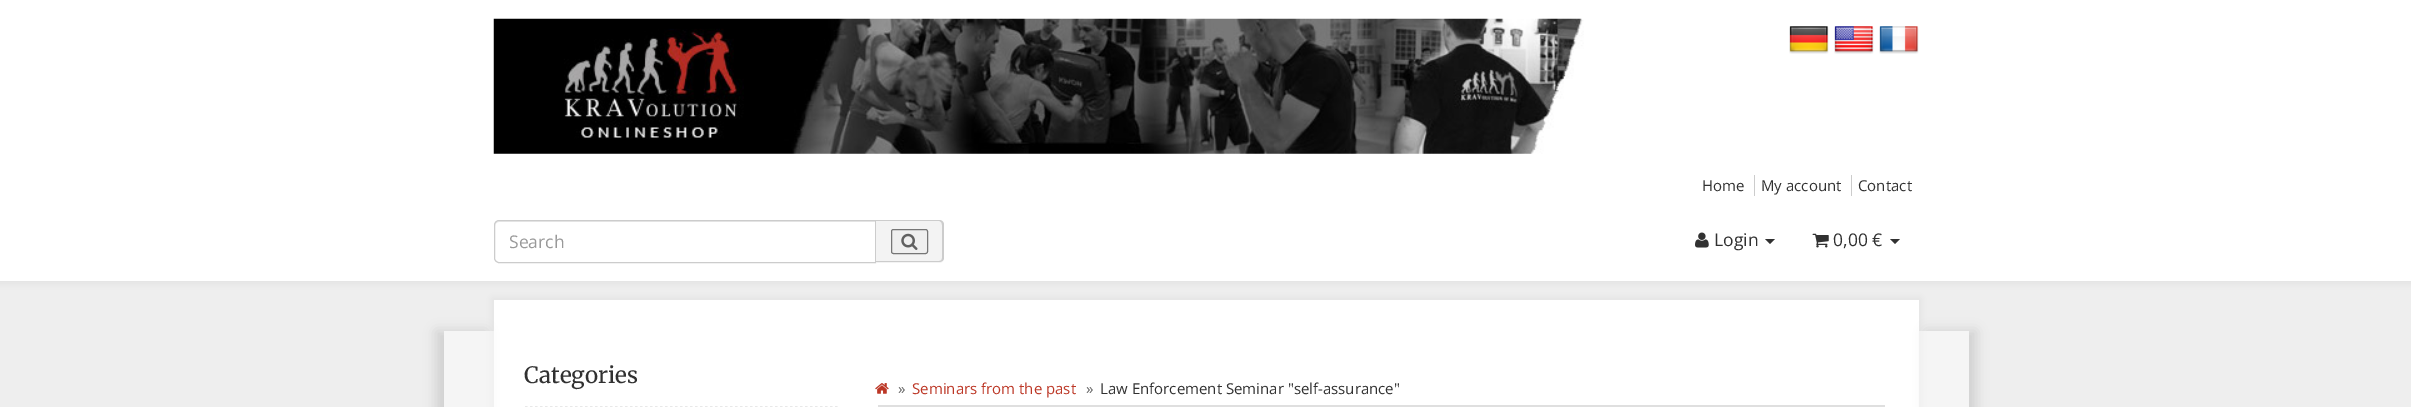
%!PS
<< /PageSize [2411 407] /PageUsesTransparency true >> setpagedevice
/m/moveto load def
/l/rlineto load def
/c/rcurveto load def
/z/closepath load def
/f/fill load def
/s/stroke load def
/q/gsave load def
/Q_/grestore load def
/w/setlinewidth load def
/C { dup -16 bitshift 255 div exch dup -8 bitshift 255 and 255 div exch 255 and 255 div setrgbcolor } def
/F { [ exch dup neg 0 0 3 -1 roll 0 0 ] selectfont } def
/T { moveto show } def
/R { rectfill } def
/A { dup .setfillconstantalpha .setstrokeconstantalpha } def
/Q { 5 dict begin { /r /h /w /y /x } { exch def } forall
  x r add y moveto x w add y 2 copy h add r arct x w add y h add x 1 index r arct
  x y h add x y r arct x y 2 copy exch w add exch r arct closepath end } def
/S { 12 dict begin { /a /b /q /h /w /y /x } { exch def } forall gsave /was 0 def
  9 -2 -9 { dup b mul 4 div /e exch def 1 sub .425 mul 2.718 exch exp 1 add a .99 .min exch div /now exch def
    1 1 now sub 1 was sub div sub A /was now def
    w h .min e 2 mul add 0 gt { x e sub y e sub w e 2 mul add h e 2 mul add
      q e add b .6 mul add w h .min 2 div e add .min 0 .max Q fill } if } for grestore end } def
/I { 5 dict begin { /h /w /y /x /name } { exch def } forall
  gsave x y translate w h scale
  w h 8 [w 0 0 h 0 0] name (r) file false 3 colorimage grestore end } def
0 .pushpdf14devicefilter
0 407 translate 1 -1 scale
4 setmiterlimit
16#EEEEEE C
0 0 2411 407 R
16#6A6A6A C
-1 -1 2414 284 0 3 .1 S
16#FFFFFF C
0 0 2411 281 R
(1.rgb) 493 18 1091 136 I
(2.rgb) 1789 26 40 28 I
(3.rgb) 1834 26 40 28 I
(4.rgb) 1879 26 40 28 I
/OpenSans-Regular 15 F
16#313131 C
(Home) 1702 191 T
16#CCCCCC C
1754 175 1 21 R
16#313131 C
(My account) 1761 191 T
16#CCCCCC C
1851 175 1 21 R
16#313131 C
(Contact) 1858 191 T
16#ECECEC C
499 222 m 376 0 l 0 -1 l -376 0 l -3 0 -4 2 -4 5 c 0 -2 2 -4 4 -4 c z f
16#CCCCCC C
499 220.5 m 376.5 0 l 0 42 l -376.5 0 l -2.5 0 -4.5 -2 -4.5 -4.5 c 0 -33 l 0 -2.5 2 -4.5 4.5 -4.5 c z s
/OpenSans-Regular 17.5 F
16#999999 C
(Search) 509 248 T
16#F3F3F3 C
876 220 m 63 0 l 3 0 5 2 5 5 c 0 33 l 0 3 -2 5 -5 5 c -63 0 l z f
16#CCCCCC C
876 220 m 63 0 l 3 0 5 2 5 5 c 0 33 l 0 2 -2 4 -5 4 c -63 0 l z 876 221 m 63 0 l 2 0 3 2 3 4 c 0 33 l 0 2 -1 3 -3 3 c -63 0 l z eofill
16#EFEFEF C
891.5 229.5 36 24 2 Q q f Q_
16#767676 C
s
(5.rgb) 901 233 17 17 I
(6.rgb) 1695 232 14 16 I
16#313131 C
(Login) 1714 246 T
1765 239 m 10 0 l -5 5 l z f
(7.rgb) 1812 233 17 15 I
(0,00 €) 1833 246 T
1890 239 m 10 0 l -5 5 l z f
16#6A6A6A C
493 299 1427 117 0 3 .1 S
16#FFFFFF C
494 300 1425 107 R
q
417 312 m 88 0 l 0 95 l -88 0 l z 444 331 m 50 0 l 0 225 l -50 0 l z eoclip newpath
16#000000 C
436 331 50 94 0 6 .12 S
Q_
0.4 A
444 331 50 76 R
1 A
16#DFDFDF C
2.5 w
[2.5 2.5] 0 setdash
525 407.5 m 312.5 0 l s
/Merriweather-Regular 22.5 F
16#313131 C
(Categories) 524 383 T
16#DFDFDF C
878 405 1007 2 R
(8.rgb) 875 383 14 11 I
/OpenSans-Regular 15 F
16#606060 C
(») 898 394 T
16#BC3726 C
(Seminars from the past) 912 394 T
16#606060 C
(») 1086 394 T
16#313131 C
(Law Enforcement Seminar "self-assurance") 1100 394 T
q
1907 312 m 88 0 l 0 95 l -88 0 l z 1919 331 m 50 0 l 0 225 l -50 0 l z eoclip newpath
16#000000 C
1926 331 50 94 0 6 .12 S
Q_
0.4 A
16#FFFFFF C
1919 331 50 76 R
.poppdf14devicefilter showpage
